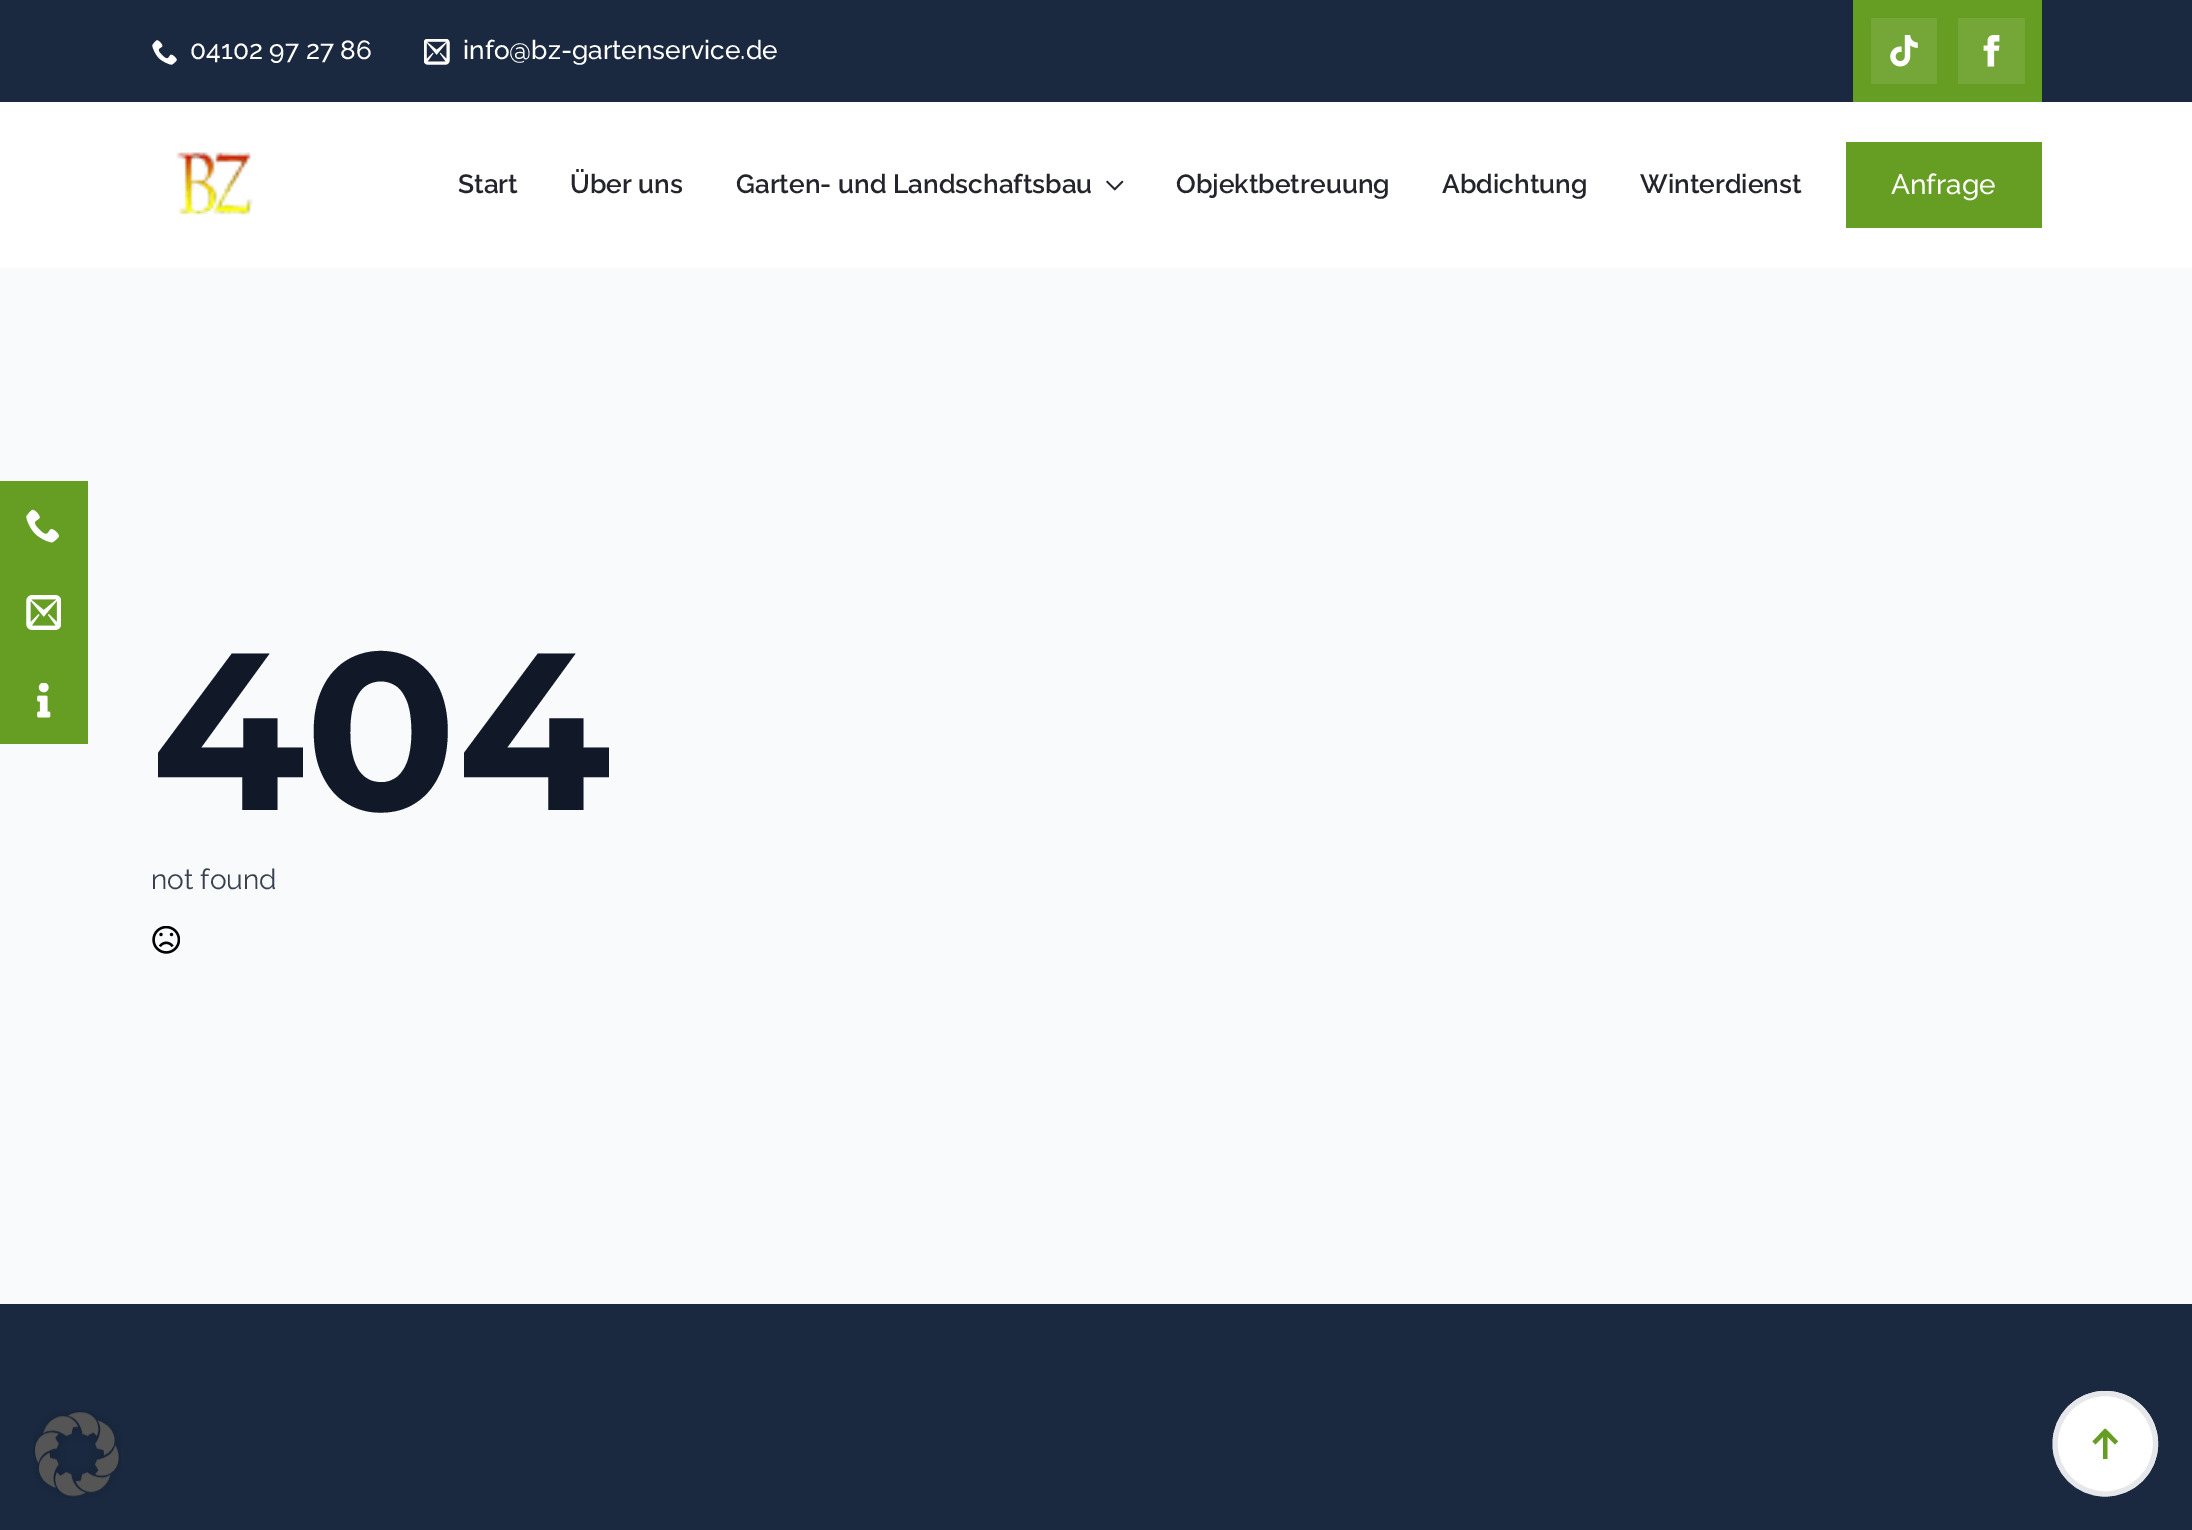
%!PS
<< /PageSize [2192 1530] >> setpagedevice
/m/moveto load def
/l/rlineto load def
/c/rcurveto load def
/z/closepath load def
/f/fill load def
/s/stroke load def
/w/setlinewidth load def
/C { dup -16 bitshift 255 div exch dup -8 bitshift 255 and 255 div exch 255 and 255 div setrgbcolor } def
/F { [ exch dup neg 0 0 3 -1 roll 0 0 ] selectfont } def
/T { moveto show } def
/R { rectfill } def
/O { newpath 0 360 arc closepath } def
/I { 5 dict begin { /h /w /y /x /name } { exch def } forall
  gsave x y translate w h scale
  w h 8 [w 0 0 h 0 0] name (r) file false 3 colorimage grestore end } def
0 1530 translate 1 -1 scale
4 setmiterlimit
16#F9FAFB C
0 0 2192 1530 R
16#1A2940 C
0 0 2192 102 R
(1.rgb) 152 40 25 25 I
/Raleway-Medium 26.25 F
16#FFFFFF C
(04102 97 27 86) 190 59 T
(2.rgb) 424 39 26 26 I
(info@bz-gartenservice.de) 463 59 T
16#669E24 C
1853 0 189 102 R
16#74A738 C
1871 18 66 66 R
(3.rgb) 1890 35 28 32 I
1958 18 67 66 R
(4.rgb) 1983 35 17 32 I
16#FFFFFF C
0 102 2192 166 R
(5.rgb) 176 152 78 63 I
/Raleway-SemiBold 26.25 F
16#23242C C
(Start) 458 193 T
(Über uns) 570 193 T
(Garten- und Landschaftsbau) 736 193 T
(6.rgb) 1106 180 18 11 I
(Objektbetreuung) 1176 193 T
(Abdichtung) 1442 193 T
(Winterdienst) 1640 193 T
16#669E24 C
1846 142 196 86 R
/Raleway-Medium 28 F
16#FFFFFF C
(Anfrage) 1891 194 T
16#669E24 C
0 481 88 263 R
(7.rgb) 26 509 33 34 I
(8.rgb) 26 595 35 35 I
(9.rgb) 37 683 14 35 I
16#1A2940 C
0 1304 2192 226 R
16#FFFFFF C
2105.5 1443.5 52.5 O f
16#669E24 C
2107 1430 m -2 -1.5 l -12.5 13 l 3 3 l 7.5 -7.5 l 0 22 l 4.5 0 l 0 -22 l 7.5 7.5 l 3 -3 l z f
16#E5E7EB C
5.1 w
1 setlinecap
2105 1393.5 m 28 0 50.5 22.5 50.5 50.5 c 0 27.5 -22.5 50 -50.5 50 c -27.5 0 -50 -22.5 -50 -50 c 0 -28 22.5 -50.5 50 -50.5 c s
/Montserrat-Bold 224 F
16#111827 C
(404) 151 810 T
/Raleway-Regular 28 F
16#374151 C
(not found) 151 889 T
(10.rgb) 152 926 28 28 I
(11.rgb) 33 1410 88 88 I
showpage
